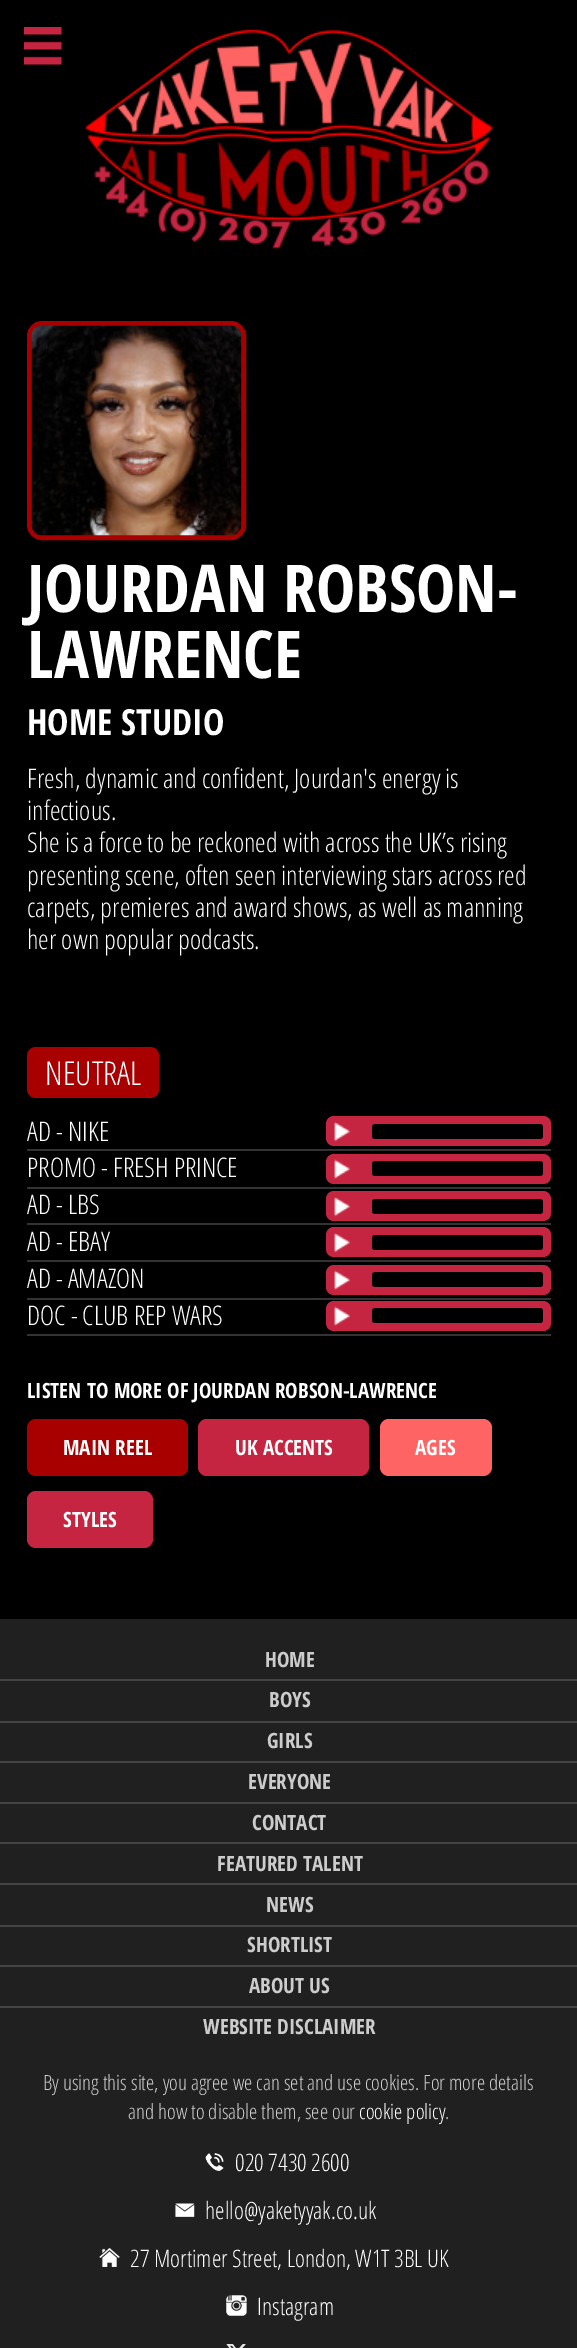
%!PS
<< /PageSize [577 2348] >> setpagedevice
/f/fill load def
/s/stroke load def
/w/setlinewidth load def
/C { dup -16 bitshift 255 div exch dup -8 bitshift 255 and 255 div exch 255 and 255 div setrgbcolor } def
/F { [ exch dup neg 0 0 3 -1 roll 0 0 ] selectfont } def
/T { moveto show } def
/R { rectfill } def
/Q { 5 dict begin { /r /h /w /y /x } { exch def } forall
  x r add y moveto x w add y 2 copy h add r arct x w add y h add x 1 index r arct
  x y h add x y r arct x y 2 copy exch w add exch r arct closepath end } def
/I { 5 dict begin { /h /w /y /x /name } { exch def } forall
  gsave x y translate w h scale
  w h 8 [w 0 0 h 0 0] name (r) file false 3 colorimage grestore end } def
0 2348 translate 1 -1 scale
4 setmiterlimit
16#000000 C
0 0 577 2348 R
(1.rgb) 24 27 38 38 I
(2.rgb) 85 29 408 221 I
16#A80000 C
5 w
29.5 323.5 214 214 12.5 Q s
(3.rgb) 31 325 211 211 I
/OpenSansCondensed-Bold 66 F
16#FFFFFF C
(JOURDAN ROBSON-) 27 612 T
(LAWRENCE) 27 678 T
/OpenSansCondensed-Bold 36 F
(HOME STUDIO) 27 735 T
/OpenSansCondensed-Light 27 F
(Fresh, dynamic and confident, Jourdan's energy is) 27 788 T
(infectious.) 27 820 T
(She is a force to be reckoned with across the UK’s rising) 27 852 T
(presenting scene, often seen interviewing stars across red) 27 885 T
(carpets, premieres and award shows, as well as manning) 27 917 T
(her own popular podcasts.) 27 949 T
16#A80000 C
27 1047 132 51 9 Q f
/OpenSansCondensed-Light 33 F
16#FFFFFF C
(NEUTRAL) 45 1085 T
16#333333 C
27 1149 524 2 R
/OpenSansCondensed-Light 27 F
16#FFFFFF C
(AD - NIKE) 27 1141 T
16#C52541 C
326 1116 225 30 8 Q f
(4.rgb) 334 1122 16 20 I
16#000000 C
372 1124 171 15 3 Q f
16#333333 C
27 1187 524 2 R
16#FFFFFF C
(PROMO - FRESH PRINCE) 27 1177 T
16#C52541 C
326 1154 225 30 8 Q f
(5.rgb) 334 1159 16 20 I
16#000000 C
372 1161 171 15 3 Q f
16#333333 C
27 1223 524 2 R
16#FFFFFF C
(AD - LBS) 27 1214 T
16#C52541 C
326 1191 225 30 8 Q f
(4.rgb) 334 1197 16 20 I
16#000000 C
372 1199 171 15 3 Q f
16#333333 C
27 1260 524 2 R
16#FFFFFF C
(AD - EBAY) 27 1251 T
16#C52541 C
326 1227 225 30 8 Q f
(4.rgb) 334 1233 16 20 I
16#000000 C
372 1235 171 15 3 Q f
16#333333 C
27 1298 524 2 R
16#FFFFFF C
(AD - AMAZON) 27 1288 T
16#C52541 C
326 1265 225 30 8 Q f
(5.rgb) 334 1270 16 20 I
16#000000 C
372 1272 171 15 3 Q f
16#333333 C
27 1334 524 2 R
16#FFFFFF C
(DOC - CLUB REP WARS) 27 1325 T
16#C52541 C
326 1301 225 30 8 Q f
(5.rgb) 334 1306 16 20 I
16#000000 C
372 1308 171 15 3 Q f
/OpenSansCondensed-Bold 21 F
16#FFFFFF C
(LISTEN TO MORE OF JOURDAN ROBSON-LAWRENCE) 27 1398 T
16#A80000 C
27 1419 161 57 9 Q f
16#FFFFFF C
(MAIN REEL) 63 1455 T
16#C52541 C
198 1419 171 57 9 Q f
16#FFFFFF C
(UK ACCENTS) 235 1455 T
16#FF6464 C
380 1419 112 57 9 Q f
16#FFFFFF C
(AGES) 415 1455 T
16#C52541 C
27 1491 126 57 9 Q f
16#FFFFFF C
(STYLES) 63 1527 T
16#202020 C
0 1619 577 729 R
16#444444 C
0 1679 577 2 R
16#CCCCCC C
(HOME) 265 1667 T
16#444444 C
0 1721 577 2 R
16#CCCCCC C
(BOYS) 269 1707 T
16#444444 C
0 1761 577 2 R
16#CCCCCC C
(GIRLS) 267 1748 T
16#444444 C
0 1802 577 2 R
16#CCCCCC C
(EVERYONE) 248 1789 T
16#444444 C
0 1842 577 2 R
16#CCCCCC C
(CONTACT) 252 1830 T
16#444444 C
0 1883 577 2 R
16#CCCCCC C
(FEATURED TALENT) 217 1871 T
16#444444 C
0 1925 577 2 R
16#CCCCCC C
(NEWS) 266 1912 T
16#444444 C
0 1965 577 2 R
16#CCCCCC C
(SHORTLIST) 247 1952 T
16#444444 C
0 2006 577 2 R
16#CCCCCC C
(ABOUT US) 249 1993 T
(WEBSITE DISCLAIMER) 203 2034 T
/OpenSansCondensed-Light 21 F
(By using this site, you agree we can set and use cookies. For more details) 43 2090 T
(and how to disable them, see our) 128 2119 T
16#FFFFFF C
(cookie policy) 359 2119 T
16#CCCCCC C
(.) 445 2119 T
(6.rgb) 205 2153 19 18 I
/OpenSansCondensed-Light 24 F
16#FFFFFF C
(020 7430 2600) 235 2171 T
(7.rgb) 175 2203 20 14 I
(hello@yaketyyak.co.uk) 205 2219 T
(8.rgb) 99 2248 21 19 I
(27 Mortimer Street, London, W1T 3BL UK) 130 2267 T
(9.rgb) 226 2295 21 21 I
(Instagram) 257 2315 T
(10.rgb) 226 2344 20 4 I
showpage
